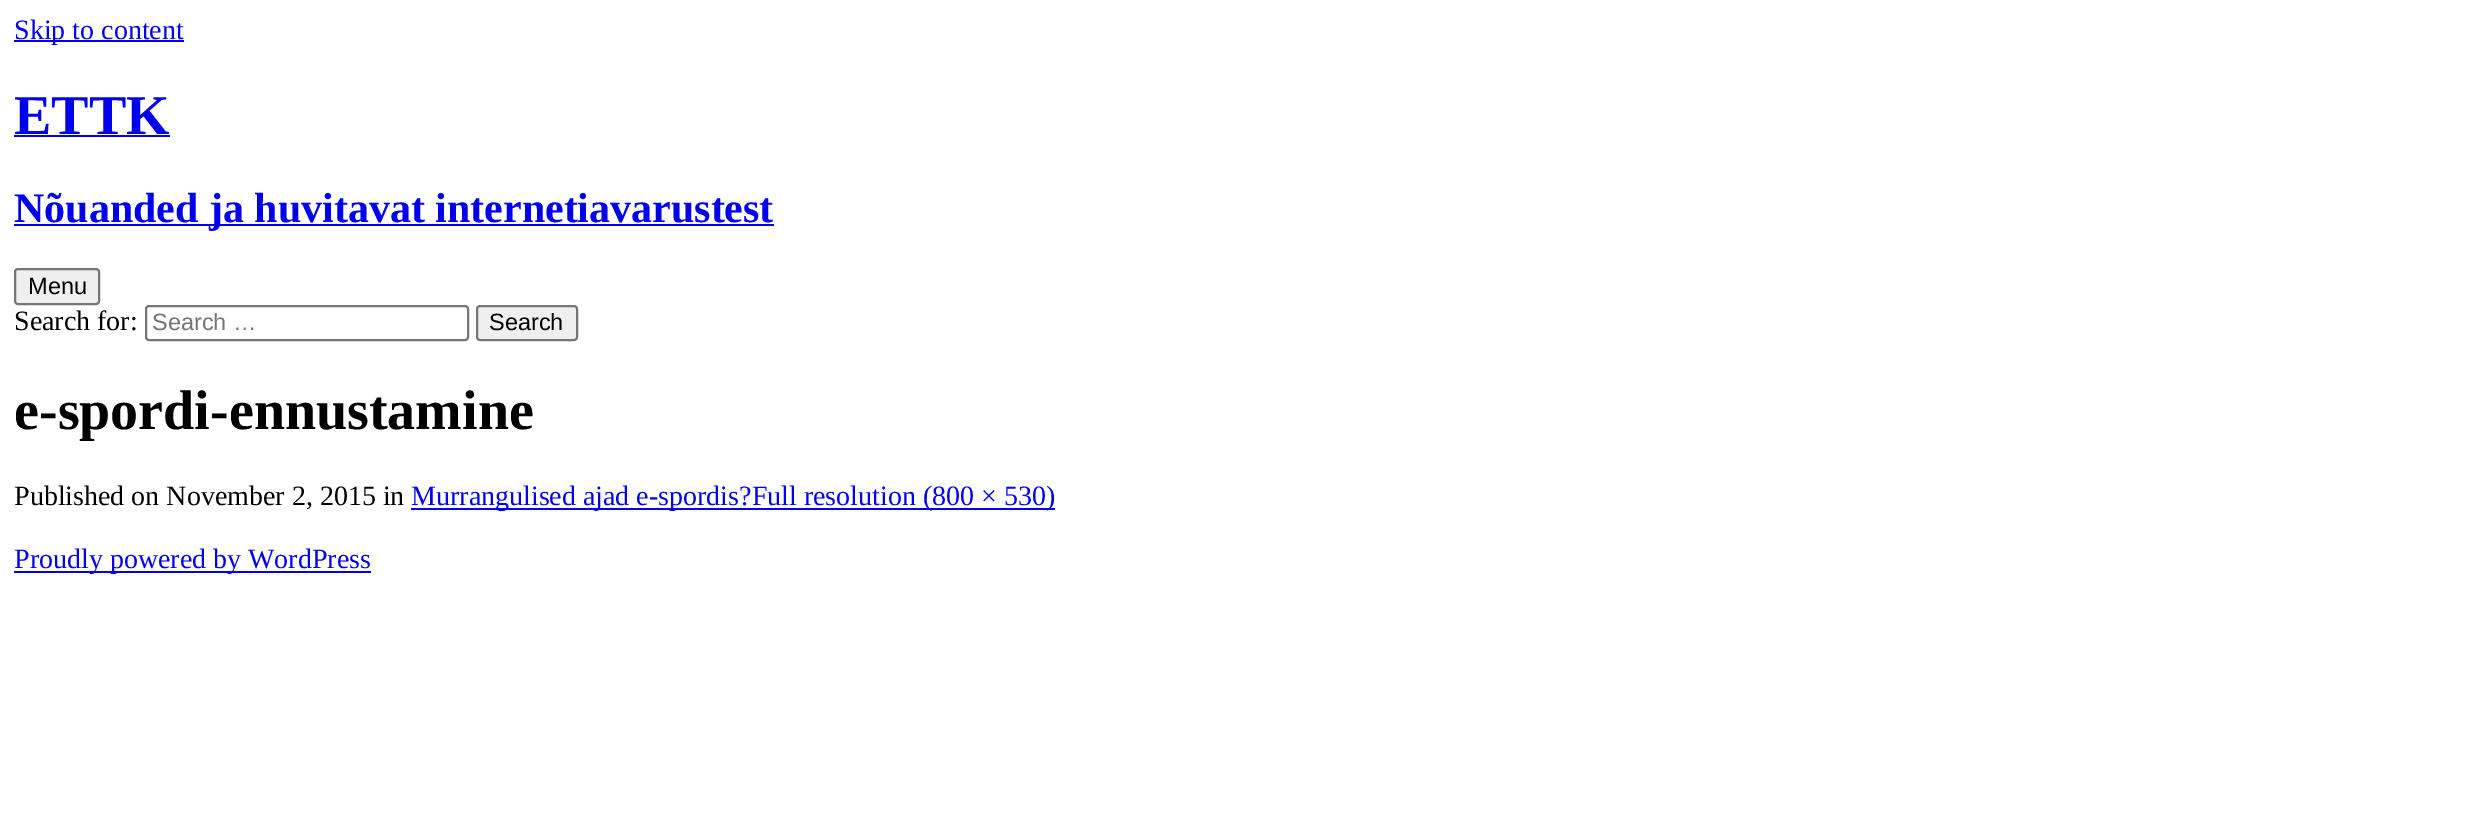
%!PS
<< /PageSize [2472 833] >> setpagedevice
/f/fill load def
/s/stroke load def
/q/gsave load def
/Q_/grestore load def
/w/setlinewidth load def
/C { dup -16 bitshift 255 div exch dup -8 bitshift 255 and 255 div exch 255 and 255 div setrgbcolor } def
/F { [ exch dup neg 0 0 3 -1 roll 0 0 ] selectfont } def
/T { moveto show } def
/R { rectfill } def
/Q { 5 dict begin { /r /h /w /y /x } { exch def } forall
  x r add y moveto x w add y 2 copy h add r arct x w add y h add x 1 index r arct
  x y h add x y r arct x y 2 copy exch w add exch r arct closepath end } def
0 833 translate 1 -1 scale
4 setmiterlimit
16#FFFFFF C
0 0 2472 833 R
16#0000EE C
14 40 170 2 R
/LiberationSerif-Regular 28 F
(Skip to content) 14 39 T
/LiberationSerif-Bold 56 F
(ETTK) 14 134 T
14 135 156 2 R
14 224 760 2 R
/LiberationSerif-Bold 42 F
(Nõuanded ja huvitavat internetiavarustest) 14 222 T
16#EFEFEF C
15 269 84 35 3 Q q f Q_
16#767676 C
2 w
s
/LiberationSans-Regular 23.5 F
16#000000 C
(Menu) 28 294 T
/LiberationSerif-Regular 28 F
(Search for:) 14 330 T
16#767676 C
146 306 322 34 3 Q s
/LiberationSans-Regular 23.5 F
16#757575 C
(Search …) 152 330 T
16#EFEFEF C
477 306 100 34 3 Q q f Q_
16#767676 C
s
16#000000 C
(Search) 489 330 T
/LiberationSerif-Bold 56 F
(e-spordi-ennustamine) 14 429 T
/LiberationSerif-Regular 28 F
(Published on November 2, 2015 in) 14 505 T
16#0000EE C
411 508 644 2 R
(Murrangulised ajad e-spordis?Full resolution \(800 × 530\)) 411 505 T
14 571 357 2 R
(Proudly powered by WordPress) 14 568 T
showpage
